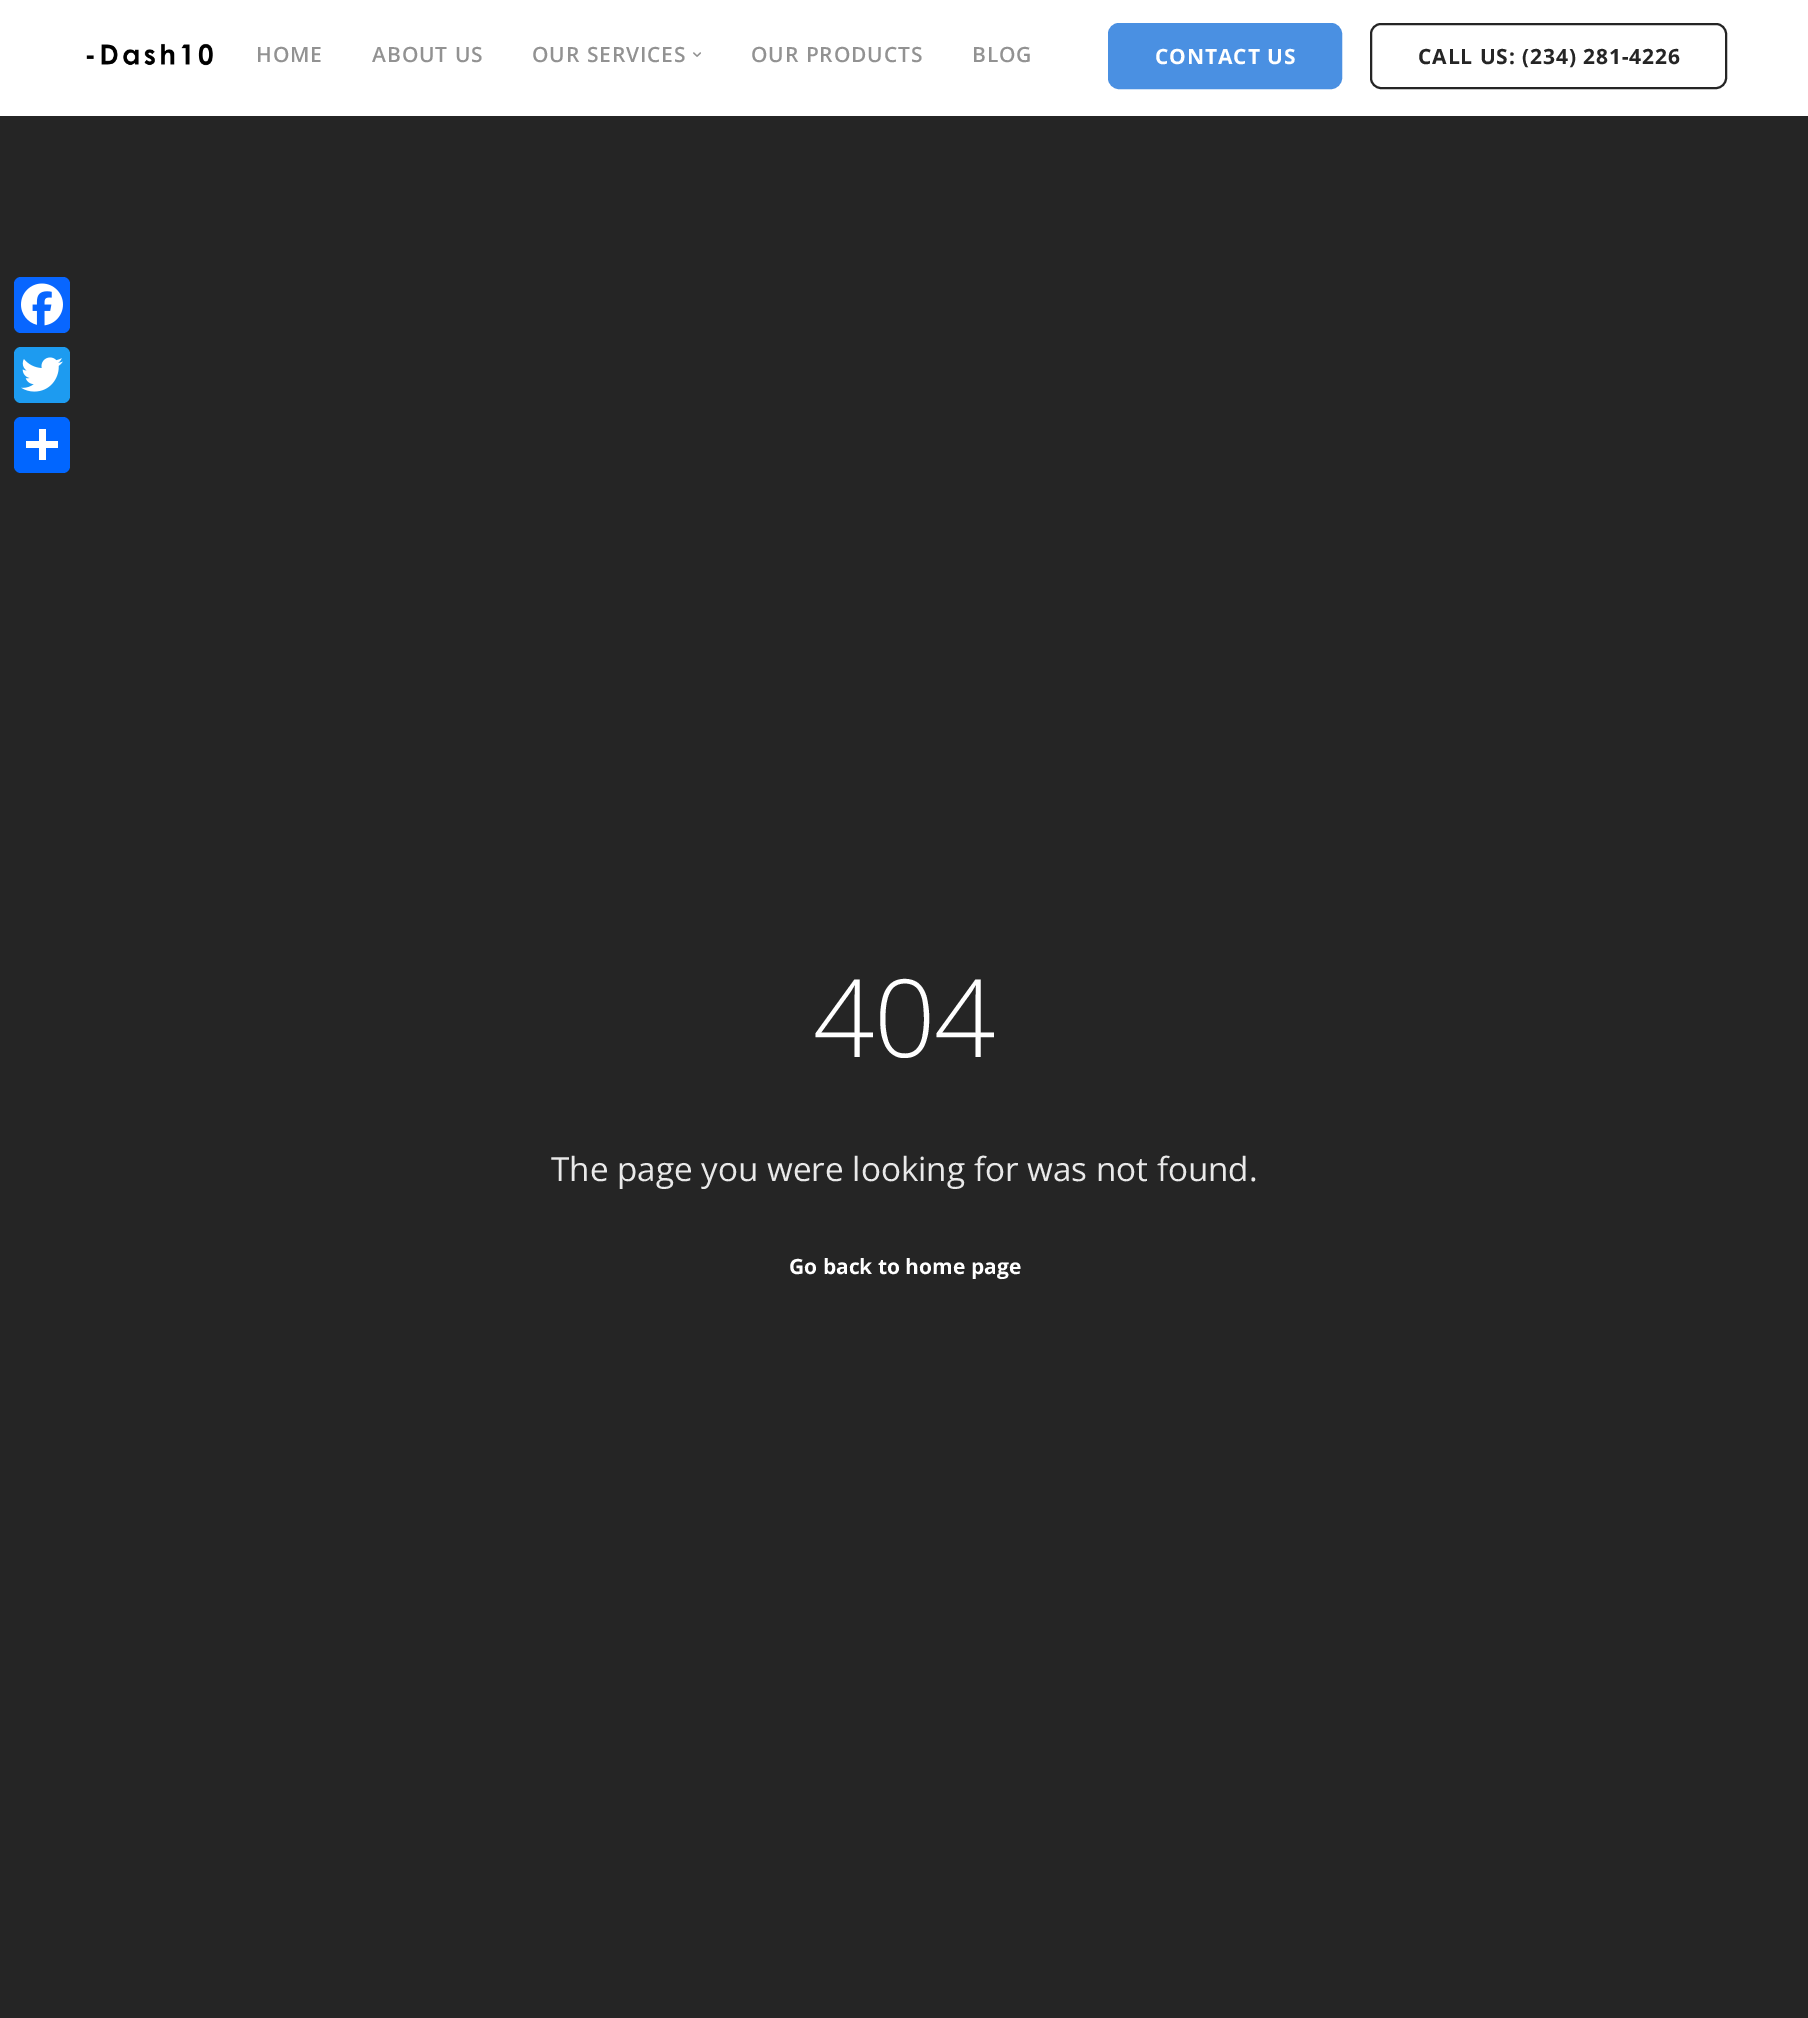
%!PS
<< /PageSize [1808 2018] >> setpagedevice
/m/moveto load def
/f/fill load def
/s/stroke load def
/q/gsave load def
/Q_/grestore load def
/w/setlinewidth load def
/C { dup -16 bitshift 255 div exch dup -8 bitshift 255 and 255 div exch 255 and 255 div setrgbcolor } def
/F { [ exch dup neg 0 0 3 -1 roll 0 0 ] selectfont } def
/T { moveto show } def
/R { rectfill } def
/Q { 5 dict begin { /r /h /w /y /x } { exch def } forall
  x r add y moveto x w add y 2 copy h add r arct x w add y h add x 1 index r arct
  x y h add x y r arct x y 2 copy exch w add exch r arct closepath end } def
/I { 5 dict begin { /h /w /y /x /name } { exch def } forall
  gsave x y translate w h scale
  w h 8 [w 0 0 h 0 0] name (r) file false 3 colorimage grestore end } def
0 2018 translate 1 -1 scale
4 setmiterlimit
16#FFFFFF C
0 0 1808 2018 R
(1.rgb) 86 43 127 23 I
/OpenSans-SemiBold 21 F
16#929292 C
256 62 m .9 0 (HOME) ashow
372 62 m .9 0 (ABOUT US) ashow
532 62 m .9 0 (OUR SERVICES) ashow
(2.rgb) 693 52 8 5 I
751 62 m .9 0 (OUR PRODUCTS) ashow
972 62 m .9 0 (BLOG) ashow
16#4A90E2 C
1109 24 232 64 10 Q q f Q_
2 w
s
/OpenSans-Bold 21 F
16#FFFFFF C
1155 64 m .9 0 (CONTACT US) ashow
16#252525 C
1371 24 355 64 10 Q s
1418 64 m .9 0 (CALL US: \(234\) 281-4226) ashow
0 116 1808 1902 R
16#0866FF C
14 277 56 56 7 Q f
(3.rgb) 21 283 42 43 I
16#1D9BF0 C
14 347 56 56 7 Q f
(4.rgb) 21 357 42 35 I
16#0166FF C
14 417 56 56 7 Q f
16#FFFFFF C
39 429 7 31 R
26 441 32 7 R
/OpenSans-Light 108 F
813 1057 m -1 0 (404) ashow
/OpenSans-Regular 33.25 F
16#E9E9E9 C
(The page you were looking for was not found.) 551 1181 T
/OpenSans-Bold 21 F
16#FFFFFF C
(Go back to home page) 789 1274 T
showpage
